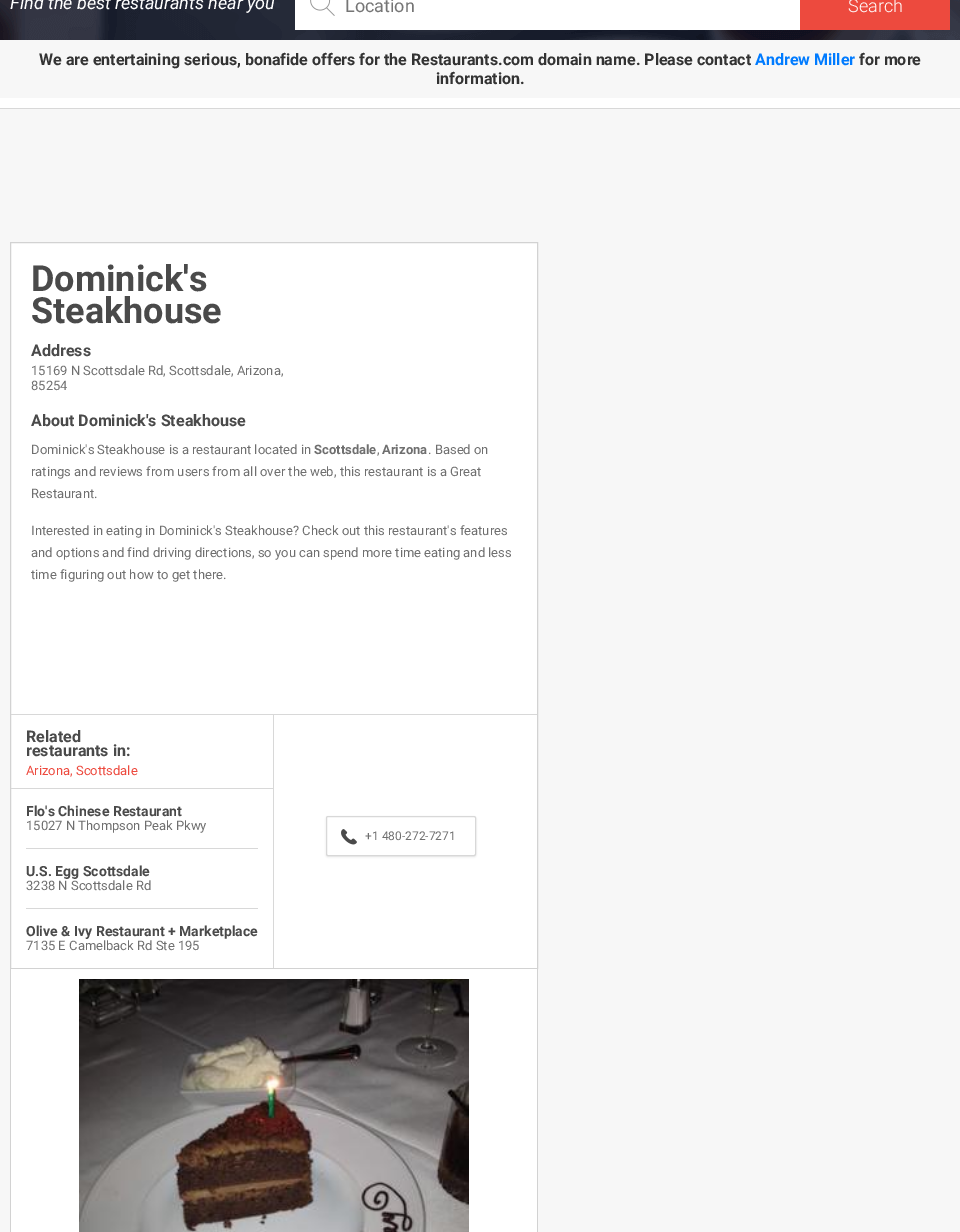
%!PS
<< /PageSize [960 1232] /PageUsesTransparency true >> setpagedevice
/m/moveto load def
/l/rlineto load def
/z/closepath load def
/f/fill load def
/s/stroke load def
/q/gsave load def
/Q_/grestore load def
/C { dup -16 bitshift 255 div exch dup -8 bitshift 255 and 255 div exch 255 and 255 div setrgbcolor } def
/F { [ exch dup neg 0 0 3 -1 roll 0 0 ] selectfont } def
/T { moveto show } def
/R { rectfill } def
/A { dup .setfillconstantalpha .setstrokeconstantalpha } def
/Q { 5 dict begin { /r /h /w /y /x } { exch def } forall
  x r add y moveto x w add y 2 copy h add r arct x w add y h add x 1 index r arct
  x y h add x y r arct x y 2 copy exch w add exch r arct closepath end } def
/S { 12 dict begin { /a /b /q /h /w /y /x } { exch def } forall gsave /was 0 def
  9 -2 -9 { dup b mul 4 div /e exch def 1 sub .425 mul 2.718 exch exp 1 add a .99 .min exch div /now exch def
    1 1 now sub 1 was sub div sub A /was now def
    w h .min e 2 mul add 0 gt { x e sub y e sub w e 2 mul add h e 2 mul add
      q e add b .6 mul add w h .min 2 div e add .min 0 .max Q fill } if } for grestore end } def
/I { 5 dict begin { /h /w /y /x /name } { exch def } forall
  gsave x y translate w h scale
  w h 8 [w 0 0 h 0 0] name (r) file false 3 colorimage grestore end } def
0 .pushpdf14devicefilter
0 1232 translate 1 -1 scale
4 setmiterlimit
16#F7F7F7 C
0 0 960 1232 R
16#FFFFFF C
0 98 960 10 R
16#D8D8D8 C
0 108 960 1 R
(1.rgb) 0 0 960 40 I
/Roboto-Italic 18 F
16#FFFFFF C
(Find the best restaurants near you) 10 9 T
295 0 505 30 R
(2.rgb) 310 0 25 16 I
/Roboto-Regular 18 F
16#757575 C
(Location) 345 12 T
16#ED4A3E C
800 0 150 30 R
/Roboto-Light 18 F
16#FFFFFF C
(Search) 848 12 T
/Roboto-Bold 16 F
16#333333 C
(We are entertaining serious, bonafide offers for the Restaurants.com domain name. Please contact) 39 65 T
16#007BFF C
(Andrew Miller) 755 65 T
16#333333 C
(for more) 859 65 T
(information.) 436 84 T
16#FFFFFF C
10.5 242.5 m 527 0 l 0 726 l -527 0 l z q f Q_
16#D2D2D2 C
s
/Roboto-Bold 36 F
16#4A4A4A C
(Dominick's) 31 291 T
(Steakhouse) 31 323 T
/Roboto-Bold 16 F
(Address) 31 356 T
/Roboto-Regular 13 F
16#6F6F6F C
(15169 N Scottsdale Rd, Scottsdale, Arizona,) 31 375 T
(85254) 31 390 T
/Roboto-Bold 16 F
16#4A4A4A C
(About Dominick's Steakhouse) 31 426 T
/Roboto-Regular 13 F
16#6F6F6F C
(Dominick's Steakhouse is a restaurant located in) 31 454 T
/Roboto-Bold 13 F
(Scottsdale) 314 454 T
/Roboto-Regular 13 F
(,) 377 454 T
/Roboto-Bold 13 F
(Arizona) 382 454 T
/Roboto-Regular 13 F
(. Based on) 428 454 T
(ratings and reviews from users from all over the web, this restaurant is a Great) 31 476 T
(Restaurant.) 31 498 T
(Interested in eating in Dominick's Steakhouse? Check out this restaurant's features) 31 535 T
(and options and find driving directions, so you can spend more time eating and less) 31 557 T
(time figuring out how to get there.) 31 579 T
16#D8D8D8 C
11 714 526 1 R
273 714 1 254 R
11 788 262 1 R
/Roboto-Bold 16 F
16#4A4A4A C
(Related) 26 742 T
(restaurants in:) 26 756 T
/Roboto-Regular 13 F
16#ED4A3E C
(Arizona, Scottsdale) 26 775 T
16#D8D8D8 C
26 848 232 1 R
/Roboto-Bold 14 F
16#4A4A4A C
(Flo's Chinese Restaurant) 26 816 T
/Roboto-Regular 13 F
16#6F6F6F C
(15027 N Thompson Peak Pkwy) 26 830 T
16#D8D8D8 C
26 908 232 1 R
/Roboto-Bold 14 F
16#4A4A4A C
(U.S. Egg Scottsdale) 26 876 T
/Roboto-Regular 13 F
16#6F6F6F C
(3238 N Scottsdale Rd) 26 890 T
/Roboto-Bold 14 F
16#4A4A4A C
(Olive & Ivy Restaurant + Marketplace) 26 936 T
/Roboto-Regular 13 F
16#6F6F6F C
(7135 E Camelback Rd Ste 195) 26 950 T
16#000000 C
326 817 150 40 2 1 .1 S
16#FFFFFF C
326.5 816.5 149 39 1.5 Q q f Q_
16#D8D8D8 C
s
(3.rgb) 341 829 16 16 I
/Roboto-Regular 12 F
16#6F6F6F C
(+1 480-272-7271) 365 840 T
16#FFFFFF C
11 969 526 263 R
16#D2D2D2 C
537 969 1 263 R
10 969 1 263 R
(4.rgb) 79 979 390 253 I
.poppdf14devicefilter showpage
